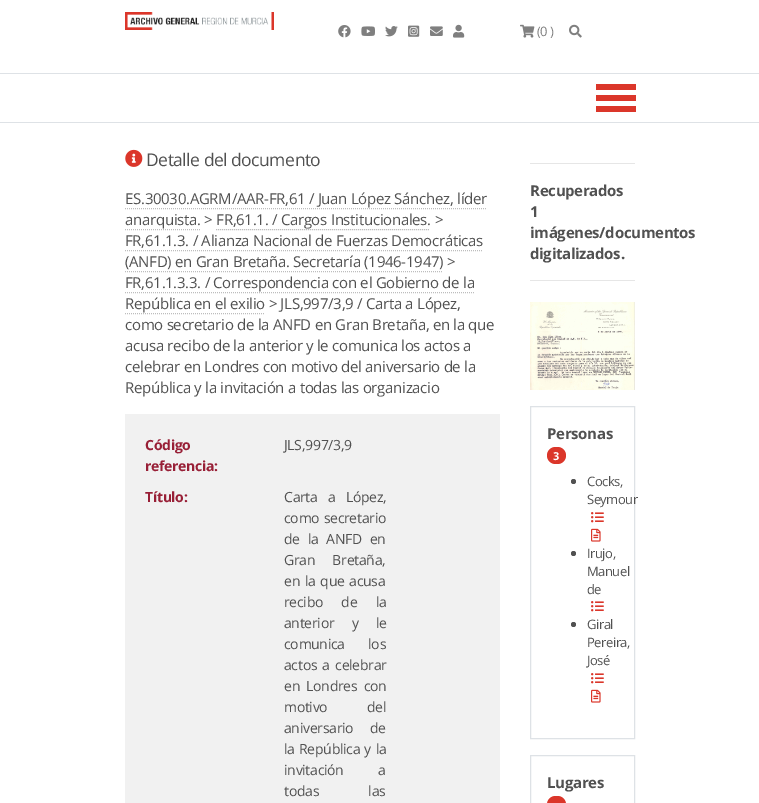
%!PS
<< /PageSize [759 803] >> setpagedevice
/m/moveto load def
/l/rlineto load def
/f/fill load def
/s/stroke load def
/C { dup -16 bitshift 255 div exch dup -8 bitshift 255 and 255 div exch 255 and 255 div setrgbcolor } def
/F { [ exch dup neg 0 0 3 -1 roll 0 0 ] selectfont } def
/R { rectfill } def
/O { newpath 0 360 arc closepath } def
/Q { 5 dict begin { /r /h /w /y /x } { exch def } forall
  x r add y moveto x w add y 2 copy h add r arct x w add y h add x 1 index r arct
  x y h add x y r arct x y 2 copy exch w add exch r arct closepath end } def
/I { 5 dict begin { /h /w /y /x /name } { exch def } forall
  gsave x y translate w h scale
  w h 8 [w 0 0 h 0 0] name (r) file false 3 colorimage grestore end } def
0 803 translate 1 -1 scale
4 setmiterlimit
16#FFFFFF C
0 0 759 803 R
(1.rgb) 125 12 149 18 I
(2.rgb) 338 25 13 13 I
(3.rgb) 361 26 14 10 I
(4.rgb) 385 26 13 11 I
(5.rgb) 408 25 12 12 I
(6.rgb) 430 26 13 10 I
(7.rgb) 453 24 12 14 I
(8.rgb) 520 24 15 14 I
/OpenSans-Regular 13 F
16#7F7F7F C
537 36 m -.5 0 (\(0 \)) ashow
(9.rgb) 569 24 13 14 I
16#DEE2E6 C
0 73 759 1 R
0 122 759 1 R
16#DB362A C
596 84 40 6 R
596 95 40 6 R
596 106 40 6 R
(10.rgb) 125 149 18 18 I
/OpenSans-Regular 17.5 F
16#515151 C
146 166 m -.5 0 (Detalle del documento) ashow
/OpenSans-Regular 15 F
125 204 m -.3 0 (ES.30030.AGRM/AAR-FR,61 / Juan López Sánchez, líder) ashow
16#BDBDBD C
[1 1] 0 setdash
125 208.5 m 361 0 l s
16#515151 C
125 225 m -.3 0 (anarquista. > FR,61.1. / Cargos Institucionales. >) ashow
16#BDBDBD C
125 229.5 m 75 0 l s
216 229.5 m 214 0 l s
16#515151 C
125 246 m -.3 0 (FR,61.1.3. / Alianza Nacional de Fuerzas Democráticas) ashow
16#BDBDBD C
125 250.5 m 358 0 l s
16#515151 C
125 267 m -.3 0 (\(ANFD\) en Gran Bretaña. Secretaría \(1946-1947\) >) ashow
16#BDBDBD C
125 271.5 m 318 0 l s
16#515151 C
125 288 m -.3 0 (FR,61.1.3.3. / Correspondencia con el Gobierno de la) ashow
16#BDBDBD C
125 292.5 m 349 0 l s
16#515151 C
125 309 m -.3 0 (República en el exilio > JLS,997/3,9 / Carta a López,) ashow
16#BDBDBD C
125 313.5 m 139 0 l s
16#515151 C
125 330 m -.3 0 (como secretario de la ANFD en Gran Bretaña, en la que) ashow
125 351 m -.3 0 (acusa recibo de la anterior y le comunica los actos a) ashow
125 372 m -.3 0 (celebrar en Londres con motivo del aniversario de la) ashow
125 393 m -.3 0 (República y la invitación a todas las organizacio) ashow
16#F1F1F1 C
125 414 375 389 R
/OpenSans-Bold 14 F
16#981F36 C
145 450 m -.3 0 (Código) ashow
145 471 m -.3 0 (referencia:) ashow
/OpenSans-Regular 14 F
16#515151 C
284 450 m -.3 0 (JLS,997/3,9) ashow
/OpenSans-Bold 14 F
16#981F36 C
145 502 m -.3 0 (Título:) ashow
/OpenSans-Regular 14 F
16#515151 C
284 502 m 7 0 32 -.3 0 (Carta a López,) awidthshow
284 523 m 1 0 32 -.3 0 (como secretario) awidthshow
284 544 m 4.5 0 32 -.3 0 (de la ANFD en) awidthshow
284 565 m 14 0 32 -.3 0 (Gran Bretaña,) awidthshow
284 586 m 1.5 0 32 -.3 0 (en la que acusa) awidthshow
284 607 m 15 0 32 -.3 0 (recibo de la) awidthshow
284 628 m 14 0 32 -.3 0 (anterior y le) awidthshow
284 649 m 20 0 32 -.3 0 (comunica los) awidthshow
284 670 m 2 0 32 -.3 0 (actos a celebrar) awidthshow
284 691 m 3 0 32 -.3 0 (en Londres con) awidthshow
284 712 m 36 0 32 -.3 0 (motivo del) awidthshow
284 733 m 13 0 32 -.3 0 (aniversario de) awidthshow
284 754 m 1 0 32 -.3 0 (la República y la) awidthshow
284 775 m 31 0 32 -.3 0 (invitación a) awidthshow
284 796 m 46 0 32 -.3 0 (todas las) awidthshow
16#E6E6E6 C
530 163 105 1 R
/OpenSans-Bold 15 F
16#515151 C
530 196 m -.3 0 (Recuperados) ashow
530 217 m -.3 0 (1) ashow
530 238 m -.3 0 (imágenes/documentos) ashow
530 259 m -.3 0 (digitalizados.) ashow
16#E6E6E6 C
530 280 105 1 R
(11.rgb) 530 302 105 88 I
16#DEE2E6 C
[] 0 setdash
530.5 406.5 104 332 rectstroke
16#515151 C
547 439 m -.3 0 (Personas) ashow
16#DB362A C
547 447 19 17 8.5 Q f
/OpenSans-Bold 11 F
16#FFFFFF C
553 460 m -.3 0 (3) ashow
16#515151 C
573.5 481.5 2.5 O f
/OpenSans-Regular 13 F
587 486 m -.5 0 (Cocks,) ashow
587 504 m -.5 0 (Seymour) ashow
(12.rgb) 591 512 13 11 I
(13.rgb) 591 528 10 14 I
573.5 553.5 2.5 O f
587 558 m -.5 0 (Irujo,) ashow
587 576 m -.5 0 (Manuel) ashow
587 594 m -.5 0 (de) ashow
(12.rgb) 591 601 13 11 I
573.5 624.5 2.5 O f
587 629 m -.5 0 (Giral) ashow
587 647 m -.5 0 (Pereira,) ashow
587 665 m -.5 0 (José) ashow
(12.rgb) 591 673 13 11 I
(13.rgb) 591 689 10 14 I
16#DEE2E6 C
530.5 755.5 104 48 rectstroke
/OpenSans-Bold 15 F
16#515151 C
547 788 m -.3 0 (Lugares) ashow
16#DB362A C
547 796 19 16 8.5 Q f
showpage
